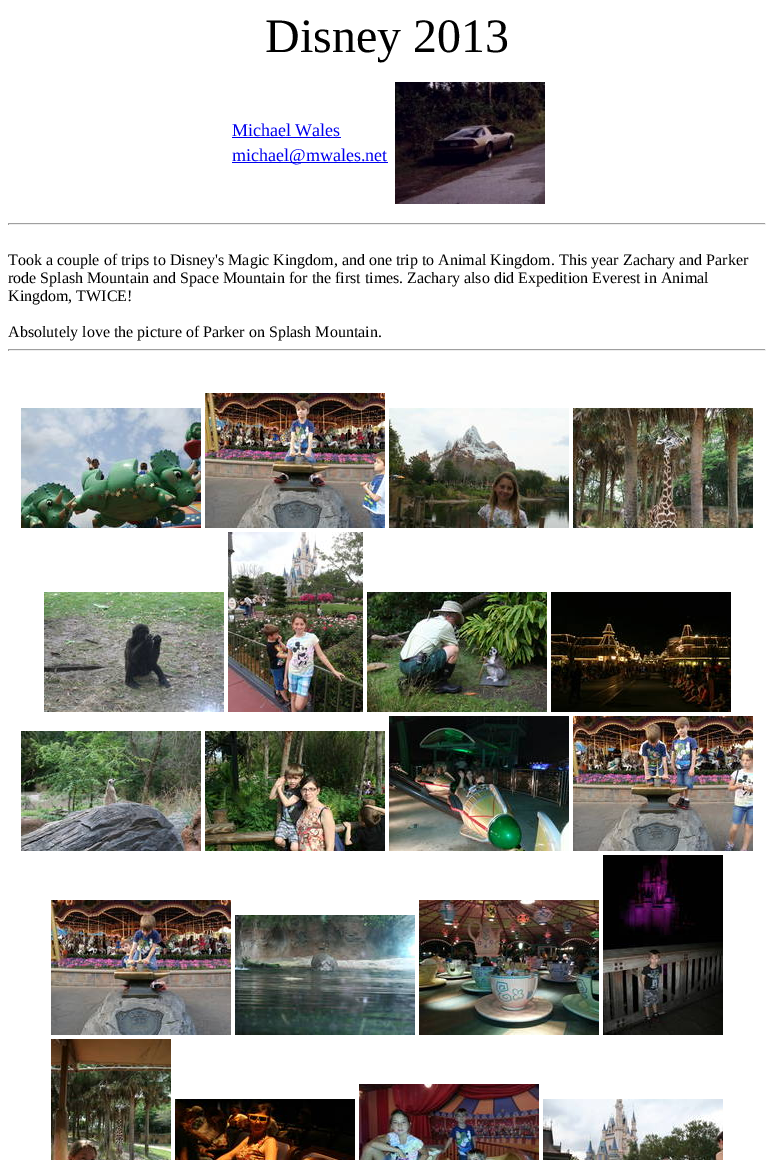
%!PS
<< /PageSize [774 1160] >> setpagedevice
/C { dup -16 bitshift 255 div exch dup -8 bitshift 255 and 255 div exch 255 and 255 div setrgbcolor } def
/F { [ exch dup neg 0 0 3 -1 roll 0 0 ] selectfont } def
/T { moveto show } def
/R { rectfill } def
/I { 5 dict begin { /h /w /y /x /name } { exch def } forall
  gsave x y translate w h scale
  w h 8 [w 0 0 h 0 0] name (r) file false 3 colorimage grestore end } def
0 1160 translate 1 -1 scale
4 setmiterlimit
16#FFFFFF C
0 0 774 1160 R
/LiberationSerif-Regular 48 F
16#000000 C
(Disney 2013) 265 52 T
/LiberationSerif-Regular 18 F
16#0000EE C
(Michael Wales) 232 136 T
232 137 109 1 R
232 162 156 1 R
(michael@mwales.net) 232 161 T
(1.rgb) 395 82 150 122 I
16#9F9F9F C
8 223 758 1 R
16#EEEEEE C
765 223 1 2 R
8 224 758 1 R
16#9F9F9F C
8 223 1 2 R
/LiberationSerif-Regular 16 F
16#000000 C
(Took a couple of trips to Disney's Magic Kingdom, and one trip to Animal Kingdom. This year Zachary and Parker) 8 265 T
(rode Splash Mountain and Space Mountain for the first times. Zachary also did Expedition Everest in Animal) 8 283 T
(Kingdom, TWICE!) 8 301 T
(Absolutely love the picture of Parker on Splash Mountain.) 8 337 T
16#9F9F9F C
8 349 758 1 R
16#EEEEEE C
765 349 1 2 R
8 350 758 1 R
16#9F9F9F C
8 349 1 2 R
(2.rgb) 21 408 180 120 I
(3.rgb) 205 393 180 135 I
(4.rgb) 389 408 180 120 I
(5.rgb) 573 408 180 120 I
(6.rgb) 44 592 180 120 I
(7.rgb) 228 532 135 180 I
(8.rgb) 367 592 180 120 I
(9.rgb) 551 592 180 120 I
(10.rgb) 21 731 180 120 I
(11.rgb) 205 731 180 120 I
(12.rgb) 389 716 180 135 I
(13.rgb) 573 716 180 135 I
(14.rgb) 51 900 180 135 I
(15.rgb) 235 915 180 120 I
(16.rgb) 419 900 180 135 I
(17.rgb) 603 855 120 180 I
(18.rgb) 51 1039 120 121 I
(19.rgb) 175 1099 180 61 I
(20.rgb) 359 1084 180 76 I
(21.rgb) 543 1099 180 61 I
showpage
